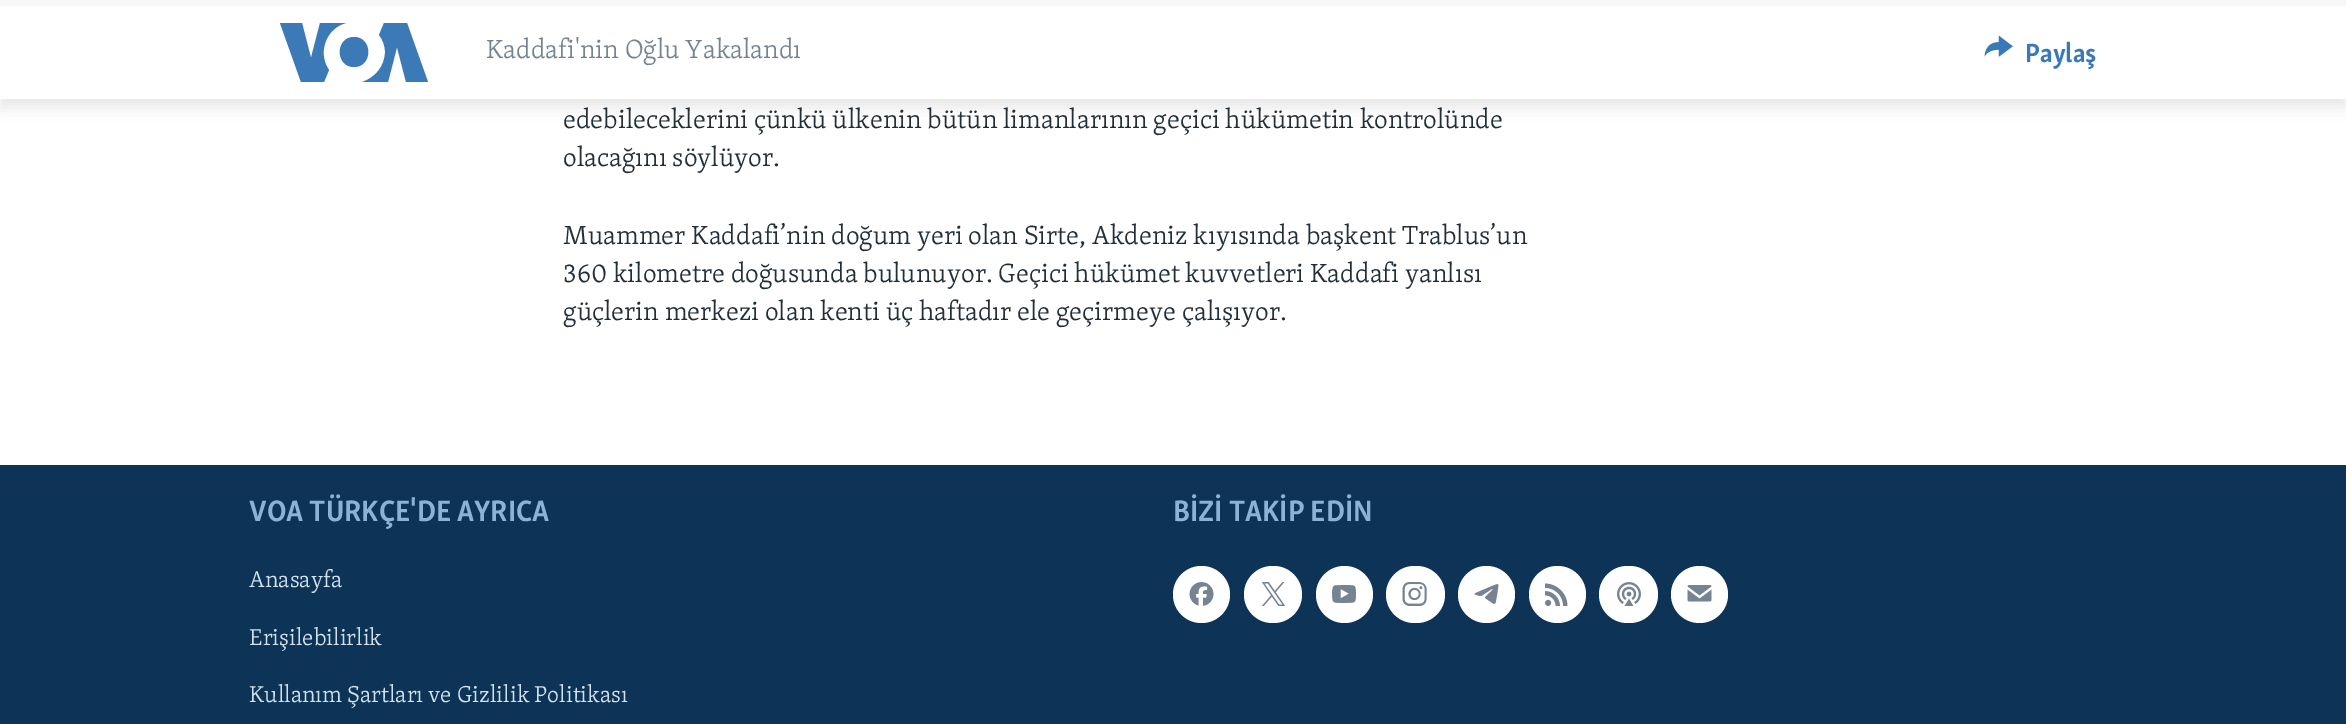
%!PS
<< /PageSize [2346 724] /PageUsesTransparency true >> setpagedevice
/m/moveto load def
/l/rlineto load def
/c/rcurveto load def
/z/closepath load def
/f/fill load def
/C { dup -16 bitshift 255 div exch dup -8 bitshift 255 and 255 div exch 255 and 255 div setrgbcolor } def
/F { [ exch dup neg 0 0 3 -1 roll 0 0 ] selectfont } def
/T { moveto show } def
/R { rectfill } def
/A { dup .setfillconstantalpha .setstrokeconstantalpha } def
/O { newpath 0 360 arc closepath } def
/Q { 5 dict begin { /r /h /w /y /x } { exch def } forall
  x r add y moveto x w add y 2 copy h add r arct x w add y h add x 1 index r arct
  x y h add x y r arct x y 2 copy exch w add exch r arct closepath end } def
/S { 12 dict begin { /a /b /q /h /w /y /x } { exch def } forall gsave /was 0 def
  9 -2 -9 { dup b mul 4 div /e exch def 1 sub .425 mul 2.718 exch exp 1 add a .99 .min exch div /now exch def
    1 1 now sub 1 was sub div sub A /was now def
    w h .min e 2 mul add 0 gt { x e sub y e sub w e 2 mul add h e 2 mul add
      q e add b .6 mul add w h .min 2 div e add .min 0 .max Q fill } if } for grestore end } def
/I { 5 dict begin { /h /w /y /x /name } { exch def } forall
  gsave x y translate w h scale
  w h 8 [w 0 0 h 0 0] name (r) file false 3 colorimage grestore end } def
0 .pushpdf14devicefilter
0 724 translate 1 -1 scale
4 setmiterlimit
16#FFFFFF C
0 0 2346 724 R
16#000000 C
0 8 2346 99 0 7.5 .1 S
16#FFFFFF C
0 6 2346 93 R
16#F6F7F8 C
0 0 2346 6 R
16#3B79B7 C
329 70 m -5 12 l -23 0 l -21 -59 l 22 0 l 9 35 l 9 -35 l 26 0 l -20 5 -29 30 -17 47 c z 354 37 m -19 0 -19 30 0 30 c 19 0 19 -30 0 -30 c z 385 52 m 0 14 -10 26 -23 30 c 26 0 l 9 -35 l 9 35 l 22 0 l -21 -59 l -23 0 l -5 12 l 4 5 6 11 6 17 c z f
/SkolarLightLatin-Light 27 F
16#768492 C
(Kaddafi'nin Oğlu Yakalandı) 486 58 T
(1.rgb) 1984 35 29 22 I
/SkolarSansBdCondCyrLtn-Bold 27 F
16#3A79B7 C
(Paylaş) 2025 62 T
/SkolarLightLatin-Light 27 F
16#222F3A C
(edebileceklerini çünkü ülkenin bütün limanlarının geçici hükümetin kontrolünde) 563 128 T
(olacağını söylüyor.) 563 166 T
(Muammer Kaddafi’nin doğum yeri olan Sirte, Akdeniz kıyısında başkent Trablus’un) 563 244 T
(360 kilometre doğusunda bulunuyor. Geçici hükümet kuvvetleri Kaddafi yanlısı) 563 282 T
(güçlerin merkezi olan kenti üç haftadır ele geçirmeye çalışıyor.) 563 320 T
16#0D3456 C
0 465 2346 259 R
/SkolarSansBdCondCyrLtn-Bold 30.4 F
16#8DB3D4 C
(VOA TÜRKÇE'DE AYRICA) 249 521 T
/SkolarLightLatin-Light 23.6 F
16#D1E1EE C
(Anasayfa) 249 587 T
(Erişilebilirlik) 249 645 T
(Kullanım Şartları ve Gizlilik Politikası) 249 702 T
/SkolarSansBdCondCyrLtn-Bold 30.4 F
16#8DB3D4 C
(BİZİ TAKİP EDİN) 1173 521 T
16#FFFFFF C
1201.5 594.5 28.5 O f
(2.rgb) 1189 582 25 24 I
1244 566 58 57 28.5 Q f
(3.rgb) 1261 582 25 24 I
1344.5 594.5 28.5 O f
(4.rgb) 1332 585 24 18 I
1386 566 59 57 28.5 Q f
(5.rgb) 1402 582 25 24 I
1486.5 594.5 28.5 O f
(6.rgb) 1474 584 25 20 I
1557.5 594.5 28.5 O f
(7.rgb) 1545 583 23 23 I
1599 566 59 57 28.5 Q f
(8.rgb) 1617 582 24 24 I
1699.5 594.5 28.5 O f
(9.rgb) 1687 585 25 17 I
.poppdf14devicefilter showpage
